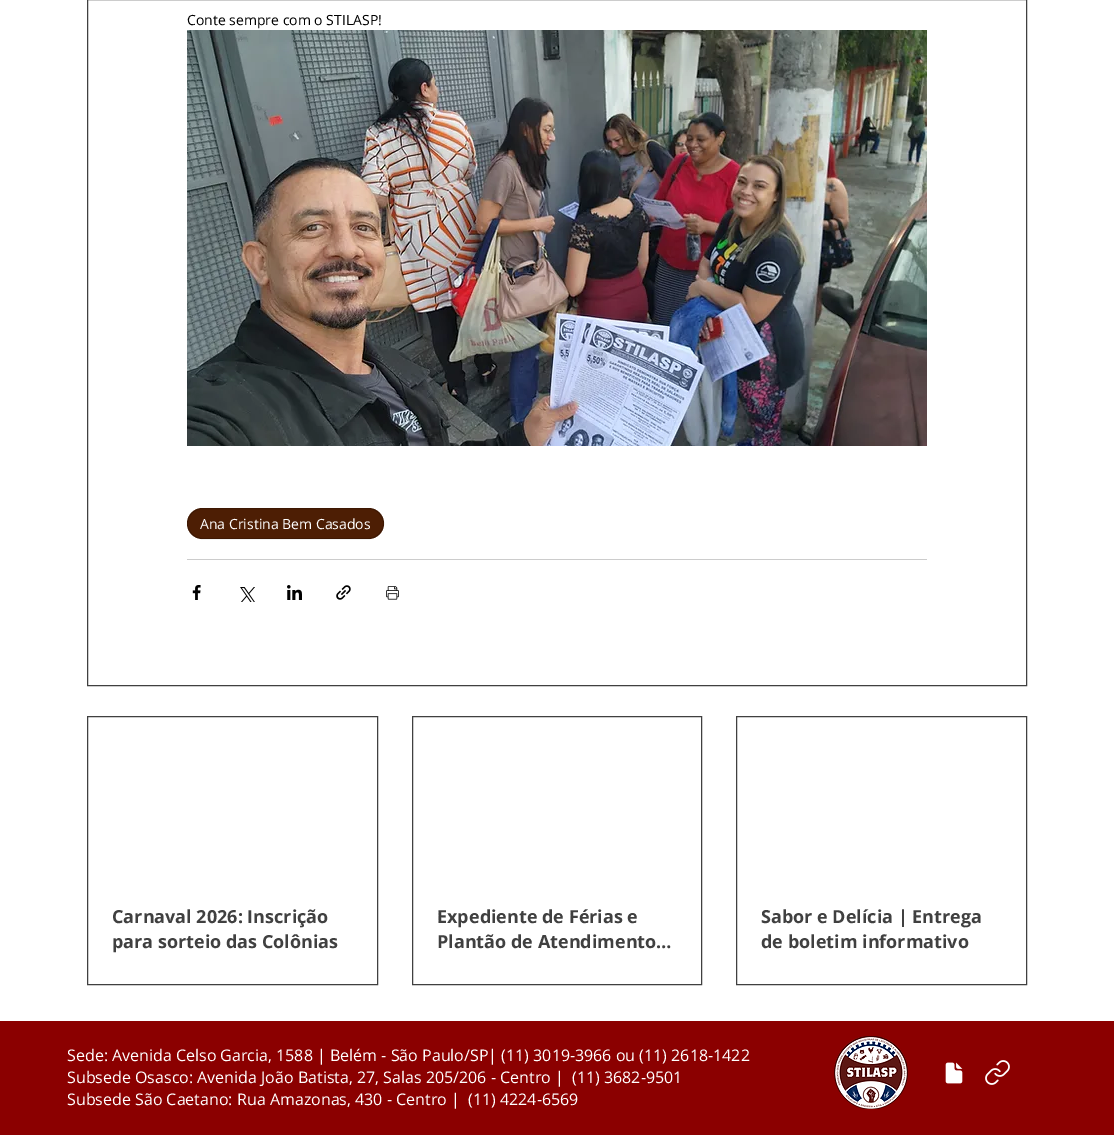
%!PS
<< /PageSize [1114 1135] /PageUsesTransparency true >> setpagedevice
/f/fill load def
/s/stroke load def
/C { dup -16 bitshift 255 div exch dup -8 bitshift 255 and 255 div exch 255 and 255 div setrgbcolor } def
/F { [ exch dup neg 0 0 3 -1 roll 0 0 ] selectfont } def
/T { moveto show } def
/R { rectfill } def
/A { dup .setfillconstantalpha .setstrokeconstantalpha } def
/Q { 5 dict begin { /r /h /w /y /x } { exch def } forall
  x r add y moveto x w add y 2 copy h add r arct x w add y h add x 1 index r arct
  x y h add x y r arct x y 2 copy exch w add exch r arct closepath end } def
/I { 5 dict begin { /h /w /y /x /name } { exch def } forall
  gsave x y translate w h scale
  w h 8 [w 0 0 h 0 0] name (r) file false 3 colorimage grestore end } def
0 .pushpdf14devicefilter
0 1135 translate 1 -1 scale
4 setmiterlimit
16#FFFFFF C
0 0 1114 1135 R
16#404040 C
87.5 -.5 939 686 rectstroke
/OpenSans-Regular 14 F
16#000000 C
(Conte sempre com o STILASP!) 187 25 T
(1.rgb) 187 30 740 416 I
16#4D1E04 C
187 508 197 31 15.5 Q f
0.2 A
16#000000 C
187.5 508.5 196 30 15 Q s
1 A
16#FFFFFF C
(Ana Cristina Bem Casados) 200 529 T
16#CCCCCC C
187 559 740 1 R
(2.rgb) 192 585 9 15 I
(3.rgb) 240 587 15 15 I
(4.rgb) 287 585 15 15 I
(5.rgb) 336 585 15 15 I
(6.rgb) 386 586 13 14 I
16#404040 C
87.5 716.5 290 268 rectstroke
/OpenSans-Bold 18 F
(Carnaval 2026: Inscrição) 112 923 T
(para sorteio das Colônias) 112 948 T
412.5 716.5 289 268 rectstroke
(Expediente de Férias e) 437 923 T
(Plantão de Atendimento…) 437 948 T
736.5 716.5 290 268 rectstroke
(Sabor e Delícia | Entrega) 761 923 T
(de boletim informativo) 761 948 T
16#8B0000 C
0 1021 1114 114 R
/OpenSans-Regular 16 F
16#FFFFFF C
(Sede: Avenida Celso Garcia, 1588 | Belém - São Paulo/SP| \(11\) 3019-3966 ou \(11\) 2618-1422) 67 1061 T
(Subsede Osasco: Avenida João Batista, 27, Salas 205/206 - Centro |  \(11\) 3682-9501) 67 1083 T
(Subsede São Caetano: Rua Amazonas, 430 - Centro |  \(11\) 4224-6569) 67 1105 T
(7.rgb) 834 1036 74 73 I
(8.rgb) 945 1062 18 22 I
(9.rgb) 985 1060 25 25 I
.poppdf14devicefilter showpage
